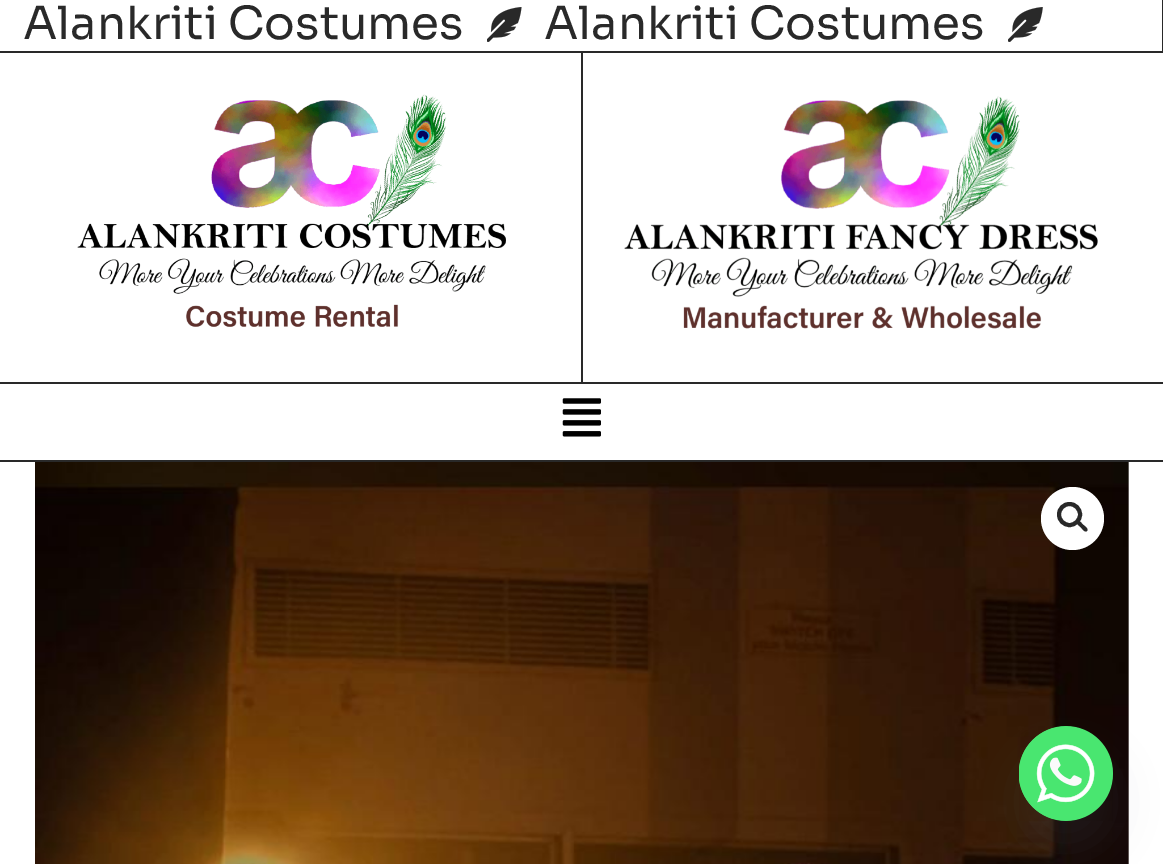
%!PS
<< /PageSize [1163 864] /PageUsesTransparency true >> setpagedevice
/m/moveto load def
/c/rcurveto load def
/z/closepath load def
/f/fill load def
/s/stroke load def
/w/setlinewidth load def
/C { dup -16 bitshift 255 div exch dup -8 bitshift 255 and 255 div exch 255 and 255 div setrgbcolor } def
/F { [ exch dup neg 0 0 3 -1 roll 0 0 ] selectfont } def
/T { moveto show } def
/R { rectfill } def
/A { dup .setfillconstantalpha .setstrokeconstantalpha } def
/O { newpath 0 360 arc closepath } def
/Q { 5 dict begin { /r /h /w /y /x } { exch def } forall
  x r add y moveto x w add y 2 copy h add r arct x w add y h add x 1 index r arct
  x y h add x y r arct x y 2 copy exch w add exch r arct closepath end } def
/S { 12 dict begin { /a /b /q /h /w /y /x } { exch def } forall gsave /was 0 def
  9 -2 -9 { dup b mul 4 div /e exch def 1 sub .425 mul 2.718 exch exp 1 add a .99 .min exch div /now exch def
    1 1 now sub 1 was sub div sub A /was now def
    w h .min e 2 mul add 0 gt { x e sub y e sub w e 2 mul add h e 2 mul add
      q e add b .6 mul add w h .min 2 div e add .min 0 .max Q fill } if } for grestore end } def
/I { 5 dict begin { /h /w /y /x /name } { exch def } forall
  gsave x y translate w h scale
  w h 8 [w 0 0 h 0 0] name (r) file false 3 colorimage grestore end } def
0 .pushpdf14devicefilter
0 864 translate 1 -1 scale
4 setmiterlimit
16#FFFFFF C
0 0 1163 864 R
16#292929 C
1162 0 1 53 R
0 51 1163 2 R
/Sora-Regular 45.5 F
(Alankriti Costumes) 23 39 T
(1.rgb) 487 7 35 35 I
(Alankriti Costumes) 544 39 T
(2.rgb) 1008 7 35 35 I
581 53 2 329 R
(3.rgb) 77 94 429 233 I
(4.rgb) 624 96 474 233 I
0 382 1163 2 R
0 460 1163 2 R
(5.rgb) 562 398 39 39 I
(6.rgb) 35 462 1094 402 I
16#FFFFFF C
1072.5 518.5 31.5 O f
16#292929 C
4 w
1069.5 514.5 10.5 O s
1077 521 m 2 -2 5 3 6.5 4 c 1 1 5.5 4 3.5 6 c -2 2 -5 -2.5 -6 -3.5 c -1 -1 -6 -4.5 -4 -6.5 c z f
16#49687E C
1019 754 94 95 47 21 .16 S
16#49E670 C
1019 726 94 95 47 Q f
(7.rgb) 1019 726 94 95 I
.poppdf14devicefilter showpage
